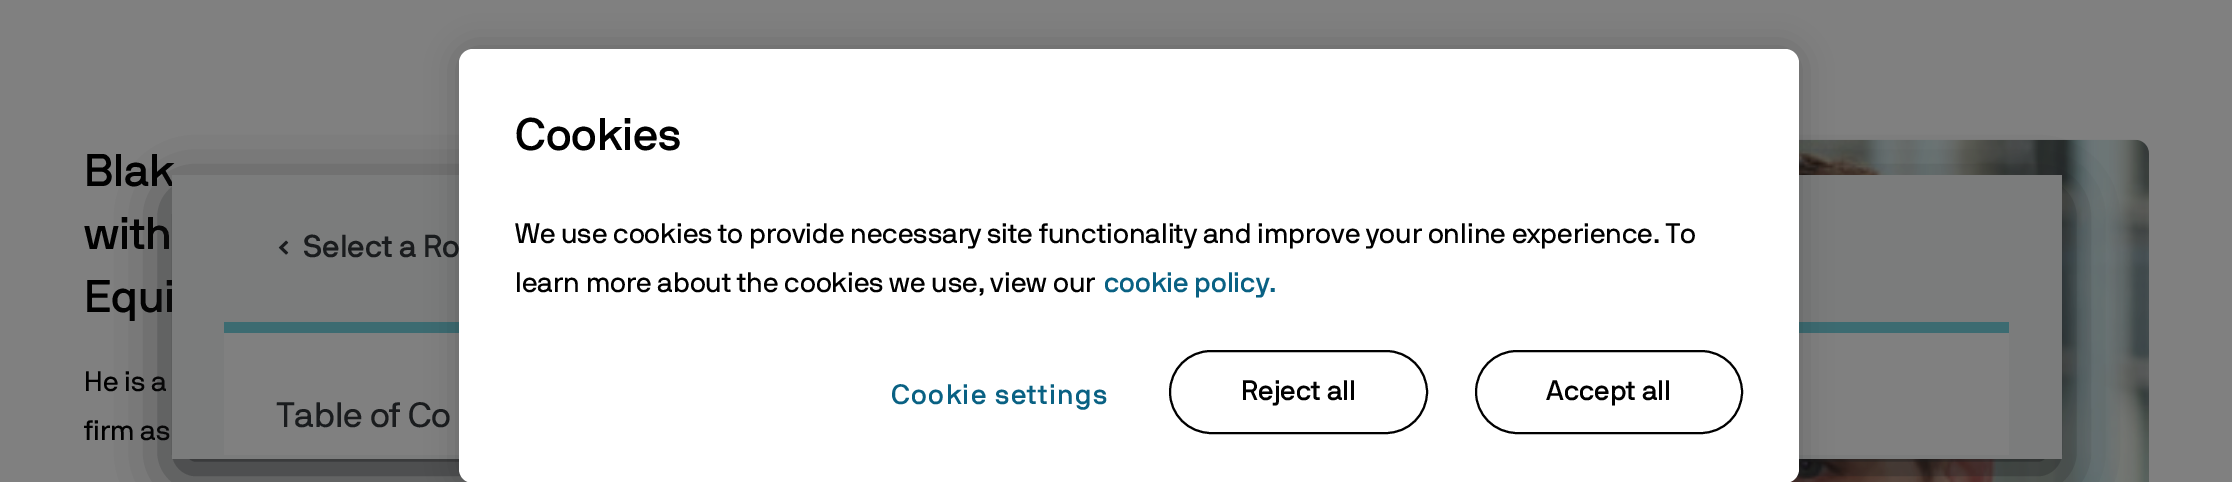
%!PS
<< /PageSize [2232 482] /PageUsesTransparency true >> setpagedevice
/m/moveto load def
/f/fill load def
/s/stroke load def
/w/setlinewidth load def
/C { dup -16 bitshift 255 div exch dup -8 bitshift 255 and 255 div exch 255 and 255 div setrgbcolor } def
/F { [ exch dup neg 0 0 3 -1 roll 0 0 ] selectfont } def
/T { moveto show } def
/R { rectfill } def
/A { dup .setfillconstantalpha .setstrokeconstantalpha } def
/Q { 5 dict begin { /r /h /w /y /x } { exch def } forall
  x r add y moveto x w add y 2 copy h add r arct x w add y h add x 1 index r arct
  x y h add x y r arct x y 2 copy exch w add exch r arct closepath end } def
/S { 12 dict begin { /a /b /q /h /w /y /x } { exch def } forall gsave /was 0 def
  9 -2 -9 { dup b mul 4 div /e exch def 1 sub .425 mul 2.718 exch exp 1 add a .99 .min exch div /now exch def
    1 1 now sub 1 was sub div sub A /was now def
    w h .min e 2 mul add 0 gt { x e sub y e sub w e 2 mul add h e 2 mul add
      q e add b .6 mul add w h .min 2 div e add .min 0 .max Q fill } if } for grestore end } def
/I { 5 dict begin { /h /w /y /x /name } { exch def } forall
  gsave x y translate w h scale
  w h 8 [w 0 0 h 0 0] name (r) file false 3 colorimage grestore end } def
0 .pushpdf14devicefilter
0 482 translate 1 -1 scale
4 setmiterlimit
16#808080 C
0 0 2232 482 R
/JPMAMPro-Medium 45.5 F
16#000000 C
(Blak) 84 186 T
(with) 84 249 T
(Equi) 84 312 T
/JPMAMPro-Regular 28 F
(He is a) 84 391 T
(firm as) 84 440 T
(1.rgb) 1790 139 359 343 I
16#1A1C1E C
179 200 1876 269 0 29 1 S
16#7B7C7C C
172 175 1890 284 R
(2.rgb) 278 240 11 15 I
/JPMAMPro-Medium 31.5 F
16#1A1C1E C
(Select a Ro) 303 257 T
16#808080 C
224 333 1785 122 R
16#3C6B71 C
224 322 1785 11 R
/JPMAMPro-Regular 35 F
16#1A1C1E C
(Table of Co) 277 427 T
16#000000 C
459 49 1340 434 14 16 .2 S
16#FFFFFF C
459 49 1340 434 14 Q f
/JPMAMPro-Medium 45.5 F
16#000000 C
(Cookies) 515 150 T
/JPMAMPro-Regular 28 F
(We use cookies to provide necessary site functionality and improve your online experience. To) 515 243 T
(learn more about the cookies we use, view our) 515 292 T
/JPMAMPro-Medium 28 F
16#096183 C
(cookie policy.) 1104 292 T
891 404 m 1.4 0 (Cookie settings) ashow
16#000000 C
2 w
1170 351 257 82 41 Q s
(Reject all) 1241 400 T
1476 351 266 82 41 Q s
(Accept all) 1546 400 T
.poppdf14devicefilter showpage
